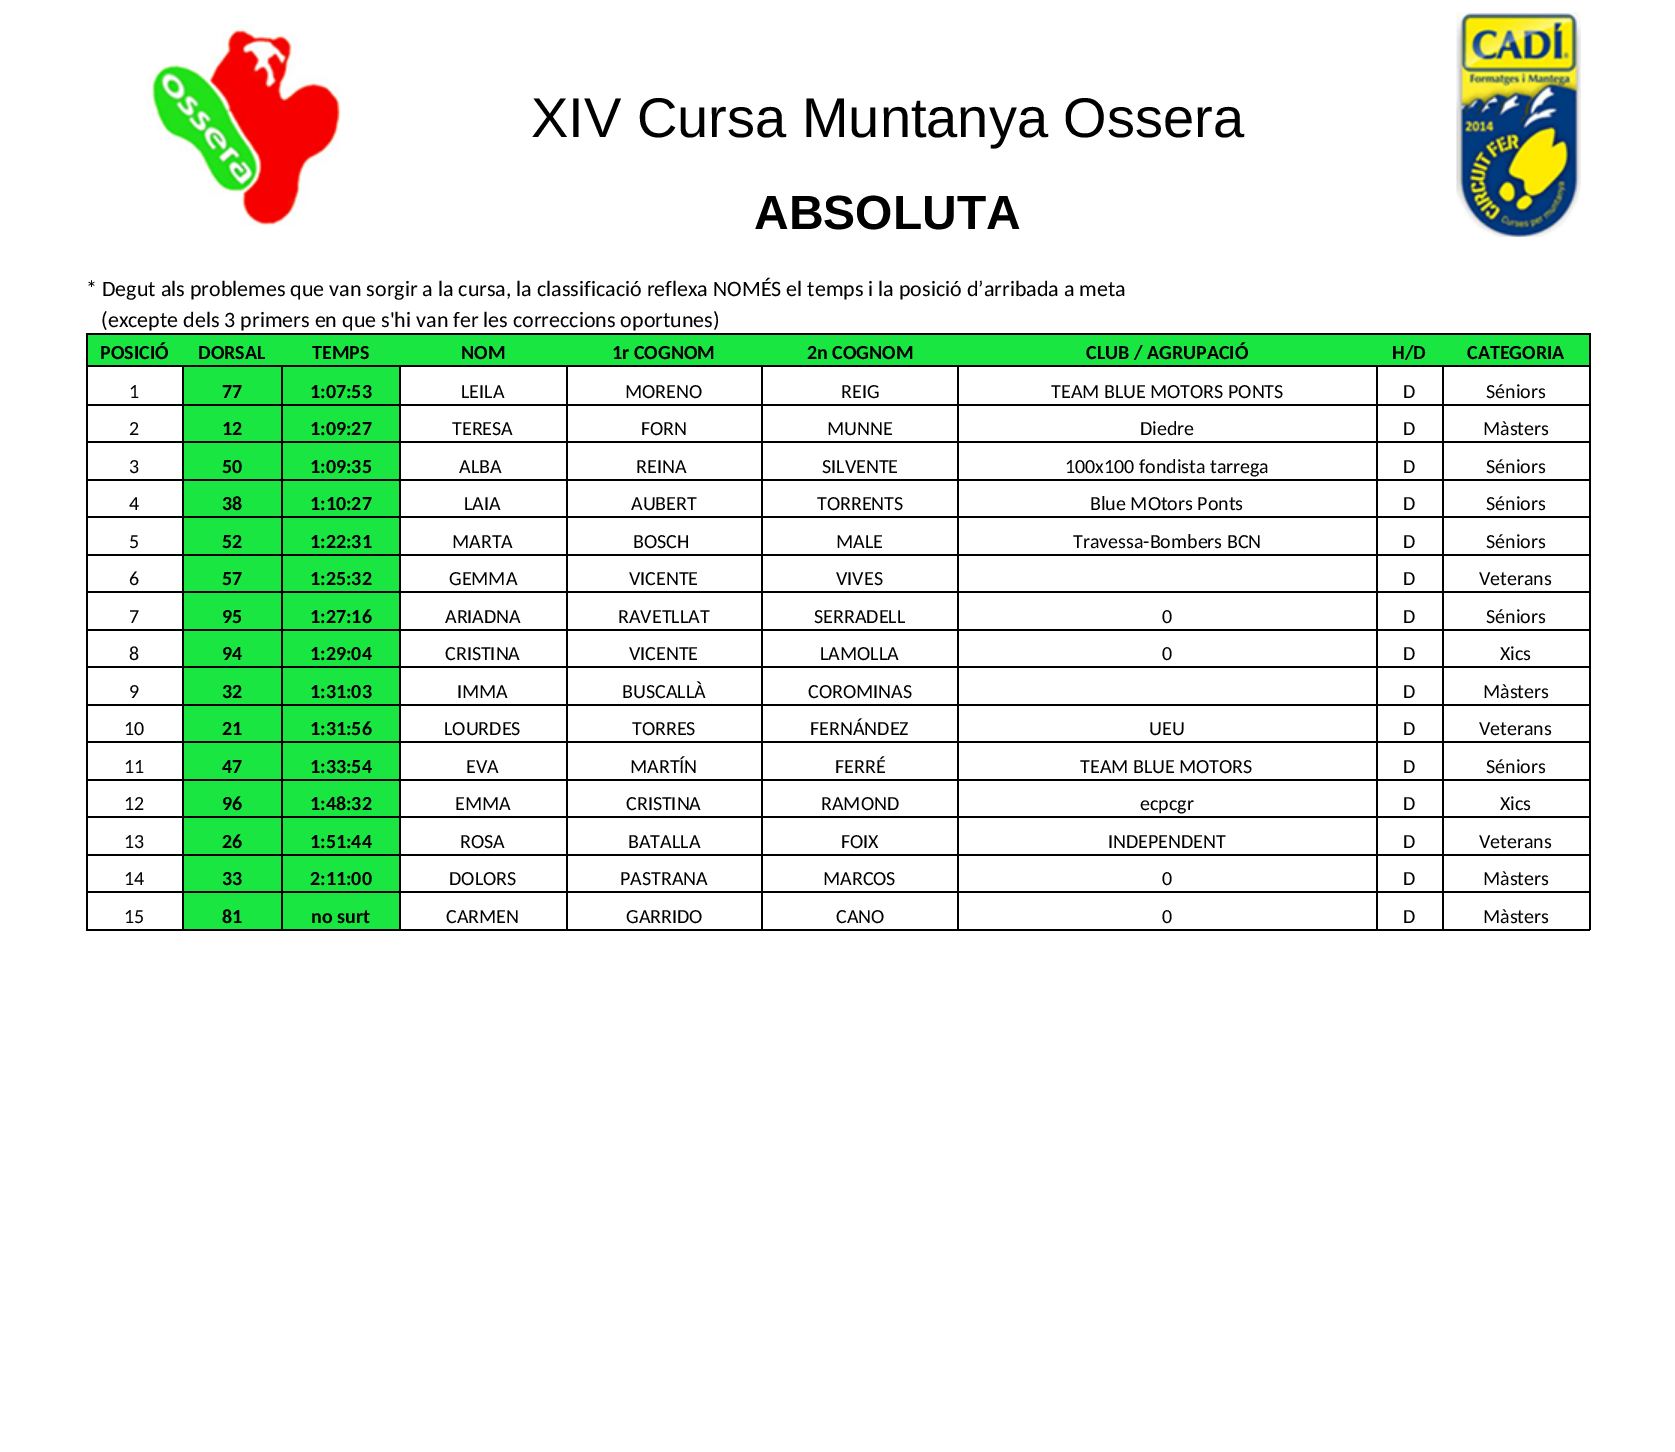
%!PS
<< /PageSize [1675 1452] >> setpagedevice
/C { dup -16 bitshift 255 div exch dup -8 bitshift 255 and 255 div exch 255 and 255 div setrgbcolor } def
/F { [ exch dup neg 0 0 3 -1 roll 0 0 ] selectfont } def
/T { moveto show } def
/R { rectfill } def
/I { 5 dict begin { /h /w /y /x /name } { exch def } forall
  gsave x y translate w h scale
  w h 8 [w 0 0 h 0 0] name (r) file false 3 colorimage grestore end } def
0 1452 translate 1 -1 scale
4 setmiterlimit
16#FFFFFF C
0 0 1675 1452 R
(1.rgb) 146 23 195 203 I
(2.rgb) 1456 12 125 225 I
/LiberationSans-Regular 56 F
16#000000 C
(XIV Cursa Muntanya Ossera) 531 137 T
/LiberationSans-Bold 48 F
(ABSOLUTA) 754 229 T
/Carlito-Regular 22 F
(* Degut als problemes que van sorgir a la cursa, la classificació reflexa NOMÉS el temps i la posició d’arribada a meta) 86 296 T
(\(excepte dels 3 primers en que s'hi van fer les correccions oportunes\)) 101 327 T
16#1AE641 C
88 335 1501 30 R
16#000000 C
86 333 1504 2 R
86 365 1504 2 R
1589 479 2 451 R
1589 404 2 76 R
1589 365 2 40 R
1442 929 148 2 R
1442 891 2 39 R
1442 891 148 2 R
1442 854 2 39 R
1442 854 148 2 R
1442 816 2 39 R
1442 816 148 2 R
1442 779 2 39 R
1442 779 148 2 R
1442 741 2 39 R
1442 741 148 2 R
1442 704 2 39 R
1442 704 148 2 R
1442 666 2 39 R
1442 666 148 2 R
1442 629 2 39 R
1442 629 148 2 R
1442 591 2 39 R
1442 591 148 2 R
1442 554 2 39 R
1442 554 148 2 R
1442 516 2 39 R
1442 516 148 2 R
1442 479 2 39 R
1442 479 148 2 R
1442 441 2 39 R
1442 441 148 2 R
1442 404 2 39 R
1442 404 148 2 R
1442 365 2 40 R
1376 929 67 2 R
1376 891 2 39 R
1376 891 67 2 R
1376 854 2 39 R
1376 854 67 2 R
1376 816 2 39 R
1376 816 67 2 R
1376 779 2 39 R
1376 779 67 2 R
1376 741 2 39 R
1376 741 67 2 R
1376 704 2 39 R
1376 704 67 2 R
1376 666 2 39 R
1376 666 67 2 R
1376 629 2 39 R
1376 629 67 2 R
1376 591 2 39 R
1376 591 67 2 R
1376 554 2 39 R
1376 554 67 2 R
1376 516 2 39 R
1376 516 67 2 R
1376 479 2 39 R
1376 479 67 2 R
1376 441 2 39 R
1376 441 67 2 R
1376 404 2 39 R
1376 404 67 2 R
1376 365 2 40 R
957 929 420 2 R
957 891 2 39 R
957 891 420 2 R
957 854 2 39 R
957 854 420 2 R
957 816 2 39 R
957 816 420 2 R
957 779 2 39 R
957 779 420 2 R
957 741 2 39 R
957 741 420 2 R
957 704 2 39 R
957 704 420 2 R
957 666 2 39 R
957 666 420 2 R
957 629 2 39 R
957 629 420 2 R
957 591 2 39 R
957 591 420 2 R
957 554 2 39 R
957 554 420 2 R
957 516 2 39 R
957 516 420 2 R
957 479 2 39 R
957 479 420 2 R
957 441 2 39 R
957 441 420 2 R
957 404 2 39 R
957 404 420 2 R
957 365 2 40 R
761 929 198 2 R
761 891 2 39 R
761 891 198 2 R
761 854 2 39 R
761 854 198 2 R
761 816 2 39 R
761 816 198 2 R
761 779 2 39 R
761 779 198 2 R
761 741 2 39 R
761 741 198 2 R
761 704 2 39 R
761 704 198 2 R
761 666 2 39 R
761 666 198 2 R
761 629 2 39 R
761 629 198 2 R
761 591 2 39 R
761 591 198 2 R
761 554 2 39 R
761 554 198 2 R
761 516 2 39 R
761 516 198 2 R
761 479 2 39 R
761 479 198 2 R
761 441 2 39 R
761 441 198 2 R
761 404 2 39 R
761 404 198 2 R
761 365 2 40 R
566 929 196 2 R
566 891 2 39 R
566 891 196 2 R
566 854 2 39 R
566 854 196 2 R
566 816 2 39 R
566 816 196 2 R
566 779 2 39 R
566 779 196 2 R
566 741 2 39 R
566 741 196 2 R
566 704 2 39 R
566 704 196 2 R
566 666 2 39 R
566 666 196 2 R
566 629 2 39 R
566 629 196 2 R
566 591 2 39 R
566 591 196 2 R
566 554 2 39 R
566 554 196 2 R
566 516 2 39 R
566 516 196 2 R
566 479 2 39 R
566 479 196 2 R
566 441 2 39 R
566 441 196 2 R
566 404 2 39 R
566 404 196 2 R
566 365 2 40 R
399 929 168 2 R
399 891 2 39 R
399 891 168 2 R
399 854 2 39 R
399 854 168 2 R
399 816 2 39 R
399 816 168 2 R
399 779 2 39 R
399 779 168 2 R
399 741 2 39 R
399 741 168 2 R
399 704 2 39 R
399 704 168 2 R
399 666 2 39 R
399 666 168 2 R
399 629 2 39 R
399 629 168 2 R
399 591 2 39 R
399 591 168 2 R
399 554 2 39 R
399 554 168 2 R
399 516 2 39 R
399 516 168 2 R
399 479 2 39 R
399 479 168 2 R
399 441 2 39 R
399 441 168 2 R
399 404 2 39 R
399 404 168 2 R
399 365 2 40 R
281 929 120 2 R
281 891 2 39 R
281 891 120 2 R
281 854 2 39 R
281 854 120 2 R
281 816 2 39 R
281 816 120 2 R
281 779 2 39 R
281 779 120 2 R
281 741 2 39 R
281 741 120 2 R
281 704 2 39 R
281 704 120 2 R
281 666 2 39 R
281 666 120 2 R
281 629 2 39 R
281 629 120 2 R
281 591 2 39 R
281 591 120 2 R
281 554 2 39 R
281 554 120 2 R
281 516 2 39 R
281 516 120 2 R
281 479 2 39 R
281 479 120 2 R
281 441 2 39 R
281 441 120 2 R
281 404 2 39 R
281 404 120 2 R
281 365 2 40 R
182 929 100 2 R
182 891 2 39 R
182 891 100 2 R
182 854 2 39 R
182 854 100 2 R
182 816 2 39 R
182 816 100 2 R
182 779 2 39 R
182 779 100 2 R
182 741 2 39 R
182 741 100 2 R
182 704 2 39 R
182 704 100 2 R
182 666 2 39 R
182 666 100 2 R
182 629 2 39 R
182 629 100 2 R
182 591 2 39 R
182 591 100 2 R
182 554 2 39 R
182 554 100 2 R
182 516 2 39 R
182 516 100 2 R
182 479 2 39 R
182 479 100 2 R
182 441 2 39 R
182 441 100 2 R
182 404 2 39 R
182 404 100 2 R
182 365 2 40 R
86 929 97 2 R
86 891 2 39 R
86 891 97 2 R
86 854 2 39 R
86 854 97 2 R
86 816 2 39 R
86 816 97 2 R
86 779 2 39 R
86 779 97 2 R
86 741 2 39 R
86 741 97 2 R
86 704 2 39 R
86 704 97 2 R
86 666 2 39 R
86 666 97 2 R
86 629 2 39 R
86 629 97 2 R
86 591 2 39 R
86 591 97 2 R
86 554 2 39 R
86 554 97 2 R
86 516 2 39 R
86 516 97 2 R
86 479 2 39 R
86 479 97 2 R
86 441 2 39 R
86 441 97 2 R
86 404 2 39 R
86 404 97 2 R
86 365 2 40 R
86 333 2 33 R
/Carlito-Bold 20 F
(POSICIÓ) 100 359 T
(DORSAL) 198 359 T
(TEMPS) 312 359 T
(NOM) 461 359 T
(1r COGNOM) 612 359 T
(2n COGNOM) 807 359 T
(CLUB / AGRUPACIÓ) 1086 359 T
(H/D) 1392 359 T
1589 333 2 33 R
(CATEGORIA) 1467 359 T
/Carlito-Regular 20 F
(1) 129 398 T
16#1AE641 C
184 367 97 37 R
/Carlito-Bold 20 F
16#000000 C
(77) 222 398 T
16#1AE641 C
283 367 116 37 R
16#000000 C
(1:07:53) 310 398 T
/Carlito-Regular 20 F
(LEILA) 461 398 T
(MORENO) 625 398 T
(REIG) 841 398 T
(TEAM BLUE MOTORS PONTS) 1051 398 T
(D) 1403 398 T
(Séniors) 1486 398 T
(2) 129 435 T
16#1AE641 C
184 406 97 35 R
/Carlito-Bold 20 F
16#000000 C
(12) 222 435 T
16#1AE641 C
283 406 116 35 R
16#000000 C
(1:09:27) 310 435 T
/Carlito-Regular 20 F
(TERESA) 452 435 T
(FORN) 641 435 T
(MUNNE) 827 435 T
(Diedre) 1140 435 T
(D) 1403 435 T
(Màsters) 1483 435 T
(3) 129 473 T
16#1AE641 C
184 443 97 36 R
/Carlito-Bold 20 F
16#000000 C
(50) 222 473 T
16#1AE641 C
283 443 116 36 R
16#000000 C
(1:09:35) 310 473 T
/Carlito-Regular 20 F
(ALBA) 459 473 T
(REINA) 636 473 T
(SILVENTE) 822 473 T
(100x100 fondista tarrega) 1065 473 T
(D) 1403 473 T
(Séniors) 1486 473 T
(4) 129 510 T
16#1AE641 C
184 481 97 35 R
/Carlito-Bold 20 F
16#000000 C
(38) 222 510 T
16#1AE641 C
283 481 116 35 R
16#000000 C
(1:10:27) 310 510 T
/Carlito-Regular 20 F
(LAIA) 464 510 T
(AUBERT) 631 510 T
(TORRENTS) 817 510 T
(Blue MOtors Ponts) 1090 510 T
(D) 1403 510 T
(Séniors) 1486 510 T
(5) 129 548 T
16#1AE641 C
184 518 97 36 R
/Carlito-Bold 20 F
16#000000 C
(52) 222 548 T
16#1AE641 C
283 518 116 36 R
16#000000 C
(1:22:31) 310 548 T
/Carlito-Regular 20 F
(MARTA) 452 548 T
(BOSCH) 633 548 T
(MALE) 836 548 T
(Travessa-Bombers BCN) 1073 548 T
(D) 1403 548 T
(Séniors) 1486 548 T
(6) 129 585 T
16#1AE641 C
184 556 97 35 R
/Carlito-Bold 20 F
16#000000 C
(57) 222 585 T
16#1AE641 C
283 556 116 35 R
16#000000 C
(1:25:32) 310 585 T
/Carlito-Regular 20 F
(GEMMA) 449 585 T
(VICENTE) 629 585 T
(VIVES) 836 585 T
(D) 1403 585 T
(Veterans) 1479 585 T
(7) 129 623 T
16#1AE641 C
184 593 97 36 R
/Carlito-Bold 20 F
16#000000 C
(95) 222 623 T
16#1AE641 C
283 593 116 36 R
16#000000 C
(1:27:16) 310 623 T
/Carlito-Regular 20 F
(ARIADNA) 445 623 T
(RAVETLLAT) 618 623 T
(SERRADELL) 814 623 T
(0) 1162 623 T
(D) 1403 623 T
(Séniors) 1486 623 T
(8) 129 660 T
16#1AE641 C
184 631 97 35 R
/Carlito-Bold 20 F
16#000000 C
(94) 222 660 T
16#1AE641 C
283 631 116 35 R
16#000000 C
(1:29:04) 310 660 T
/Carlito-Regular 20 F
(CRISTINA) 445 660 T
(VICENTE) 629 660 T
(LAMOLLA) 820 660 T
(0) 1162 660 T
(D) 1403 660 T
(Xics) 1500 660 T
(9) 129 698 T
16#1AE641 C
184 668 97 36 R
/Carlito-Bold 20 F
16#000000 C
(32) 222 698 T
16#1AE641 C
283 668 116 36 R
16#000000 C
(1:31:03) 310 698 T
/Carlito-Regular 20 F
(IMMA) 457 698 T
(BUSCALLÀ) 622 698 T
(COROMINAS) 808 698 T
(D) 1403 698 T
(Màsters) 1483 698 T
(10) 124 735 T
16#1AE641 C
184 706 97 35 R
/Carlito-Bold 20 F
16#000000 C
(21) 222 735 T
16#1AE641 C
283 706 116 35 R
16#000000 C
(1:31:56) 310 735 T
/Carlito-Regular 20 F
(LOURDES) 444 735 T
(TORRES) 632 735 T
(FERNÁNDEZ) 810 735 T
(UEU) 1149 735 T
(D) 1403 735 T
(Veterans) 1479 735 T
(11) 124 773 T
16#1AE641 C
184 743 97 36 R
/Carlito-Bold 20 F
16#000000 C
(47) 222 773 T
16#1AE641 C
283 743 116 36 R
16#000000 C
(1:33:54) 310 773 T
/Carlito-Regular 20 F
(EVA) 466 773 T
(MARTÍN) 630 773 T
(FERRÉ) 835 773 T
(TEAM BLUE MOTORS) 1080 773 T
(D) 1403 773 T
(Séniors) 1486 773 T
(12) 124 810 T
16#1AE641 C
184 781 97 35 R
/Carlito-Bold 20 F
16#000000 C
(96) 222 810 T
16#1AE641 C
283 781 116 35 R
16#000000 C
(1:48:32) 310 810 T
/Carlito-Regular 20 F
(EMMA) 455 810 T
(CRISTINA) 626 810 T
(RAMOND) 821 810 T
(ecpcgr) 1140 810 T
(D) 1403 810 T
(Xics) 1500 810 T
(13) 124 848 T
16#1AE641 C
184 818 97 36 R
/Carlito-Bold 20 F
16#000000 C
(26) 222 848 T
16#1AE641 C
283 818 116 36 R
16#000000 C
(1:51:44) 310 848 T
/Carlito-Regular 20 F
(ROSA) 460 848 T
(BATALLA) 628 848 T
(FOIX) 841 848 T
(INDEPENDENT) 1108 848 T
(D) 1403 848 T
(Veterans) 1479 848 T
(14) 124 885 T
16#1AE641 C
184 856 97 35 R
/Carlito-Bold 20 F
16#000000 C
(33) 222 885 T
16#1AE641 C
283 856 116 35 R
16#000000 C
(2:11:00) 310 885 T
/Carlito-Regular 20 F
(DOLORS) 449 885 T
(PASTRANA) 620 885 T
(MARCOS) 823 885 T
(0) 1162 885 T
(D) 1403 885 T
(Màsters) 1483 885 T
(15) 124 923 T
16#1AE641 C
184 893 97 36 R
/Carlito-Bold 20 F
16#000000 C
(81) 222 923 T
16#1AE641 C
283 893 116 36 R
16#000000 C
(no surt) 311 923 T
/Carlito-Regular 20 F
(CARMEN) 446 923 T
(GARRIDO) 626 923 T
(CANO) 836 923 T
(0) 1162 923 T
(D) 1403 923 T
(Màsters) 1483 923 T
showpage
